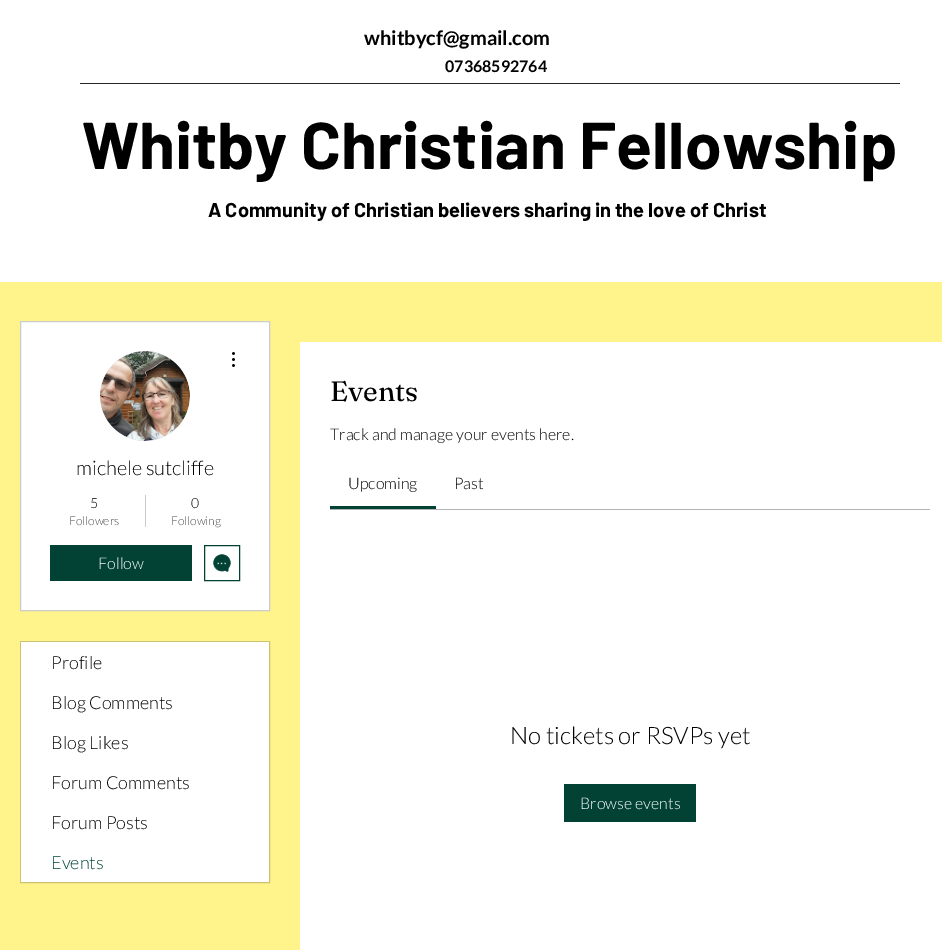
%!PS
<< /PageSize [942 950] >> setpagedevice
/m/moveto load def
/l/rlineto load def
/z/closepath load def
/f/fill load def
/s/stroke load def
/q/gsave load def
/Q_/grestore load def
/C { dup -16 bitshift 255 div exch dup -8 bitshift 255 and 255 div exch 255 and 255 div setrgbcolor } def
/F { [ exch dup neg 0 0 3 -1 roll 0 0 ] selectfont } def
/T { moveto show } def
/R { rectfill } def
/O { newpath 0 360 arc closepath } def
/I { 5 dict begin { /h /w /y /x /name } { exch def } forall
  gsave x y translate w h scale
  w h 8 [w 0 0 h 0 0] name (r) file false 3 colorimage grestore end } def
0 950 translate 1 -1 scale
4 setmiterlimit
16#FFF38C C
0 0 942 950 R
16#FFFFFF C
0 0 942 282 R
/Lato-Bold 20 F
16#000000 C
(whitbycf@gmail.com) 364 45 T
/Lato-Bold 16 F
(07368592764) 445 72 T
16#262626 C
80 83 820 1 R
/Barlow-Bold 66 F
16#000000 C
(Whitby Christian Fellowship) 82 169 T
/Barlow-Bold 20 F
(A Community of Christian believers sharing in the love of Christ) 208 217 T
16#FFFFFF C
20.5 321.5 m 249 0 l 0 289 l -249 0 l z q f Q_
16#CCCCCC C
s
16#D8D8D8 C
145 396 45 O f
(1.rgb) 100 351 90 90 I
(2.rgb) 232 352 3 15 I
/Lato-Light 20 F
16#000000 C
(michele sutcliffe) 76 475 T
/Lato-Light 14 F
(5) 90 508 T
/Lato-Light 12 F
16#4D4D4D C
(Followers) 69 525 T
16#CCCCCC C
145 495 1 32 R
/Lato-Light 14 F
16#000000 C
(0) 191 508 T
/Lato-Light 12 F
16#4D4D4D C
(Following) 171 525 T
16#014235 C
50 545 142 36 R
/Lato-Light 16 F
16#FFFFFF C
(Follow) 98 569 T
16#014235 C
204.5 545.5 35 35 rectstroke
(3.rgb) 213 554 18 18 I
16#CCC270 C
20.5 641.5 249 241 rectstroke
16#FFFFFF C
21 642 248 240 R
/Lato-Light 18 F
16#000000 C
(Profile) 51 669 T
(Blog Comments) 51 709 T
(Blog Likes) 51 749 T
(Forum Comments) 51 789 T
(Forum Posts) 51 829 T
16#014235 C
(Events) 51 869 T
16#FFFFFF C
300 342 642 608 R
/Fraunces-Regular 28 F
16#000000 C
(Events) 330 401 T
/Lato-Light 16 F
(Track and manage your events here.) 330 440 T
16#014235 C
330 506 106 3 R
16#000000 C
(Upcoming) 348 489 T
(Past) 454 489 T
16#B3B3B3 C
330 509 600 1 R
/Lato-Light 24 F
16#000000 C
(No tickets or RSVPs yet) 510 744 T
16#014235 C
564 784 132 38 R
/Lato-Light 16 F
16#FFFFFF C
(Browse events) 580 809 T
showpage
